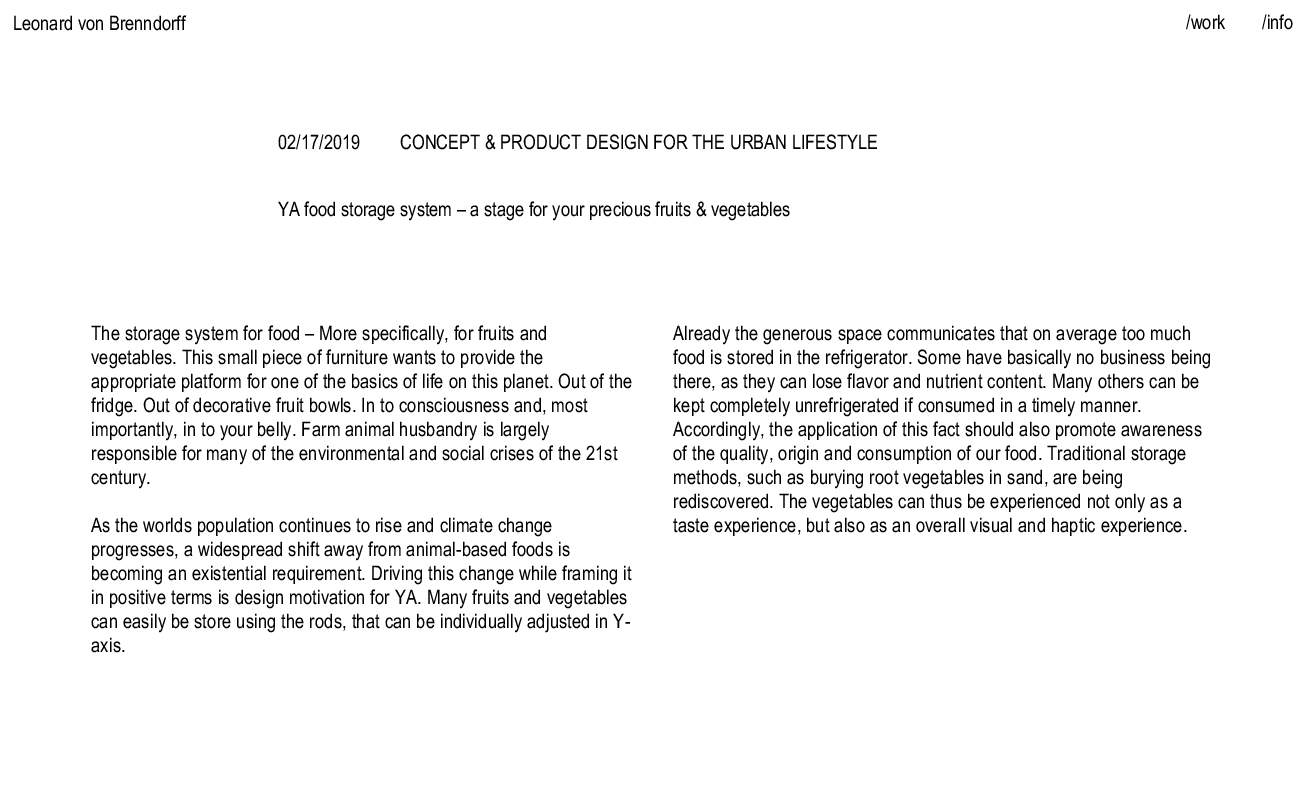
%!PS
<< /PageSize [1306 791] >> setpagedevice
/m/moveto load def
/C { dup -16 bitshift 255 div exch dup -8 bitshift 255 and 255 div exch 255 and 255 div setrgbcolor } def
/F { [ exch dup neg 0 0 3 -1 roll 0 0 ] selectfont } def
/T { moveto show } def
/R { rectfill } def
0 791 translate 1 -1 scale
4 setmiterlimit
16#FFFFFF C
0 0 1306 791 R
/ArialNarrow-Regular 20 F
16#000000 C
(Leonard von Brenndorff) 13 30 T
(/work) 1186 29 T
(/info) 1262 29 T
(02/17/2019) 278 149 T
(CONCEPT & PRODUCT DESIGN FOR THE URBAN LIFESTYLE) 400 149 T
(YA food storage system – a stage for your precious fruits & vegetables) 278 216 T
91 340 m .2 0 (The storage system for food – More specifically, for fruits and) ashow
91 364 m .2 0 (vegetables. This small piece of furniture wants to provide the) ashow
91 388 m .2 0 (appropriate platform for one of the basics of life on this planet. Out of the) ashow
91 412 m .2 0 (fridge. Out of decorative fruit bowls. In to consciousness and, most) ashow
91 436 m .2 0 (importantly, in to your belly. Farm animal husbandry is largely) ashow
91 460 m .2 0 (responsible for many of the environmental and social crises of the 21st) ashow
91 484 m .2 0 (century.) ashow
91 532 m .2 0 (As the worlds population continues to rise and climate change) ashow
91 556 m .2 0 (progresses, a widespread shift away from animal-based foods is) ashow
91 580 m .2 0 (becoming an existential requirement. Driving this change while framing it) ashow
91 604 m .2 0 (in positive terms is design motivation for YA. Many fruits and vegetables) ashow
91 628 m .2 0 (can easily be store using the rods, that can be individually adjusted in Y-) ashow
91 652 m .2 0 (axis.) ashow
673 340 m .2 0 (Already the generous space communicates that on average too much) ashow
673 364 m .2 0 (food is stored in the refrigerator. Some have basically no business being) ashow
673 388 m .2 0 (there, as they can lose flavor and nutrient content. Many others can be) ashow
673 412 m .2 0 (kept completely unrefrigerated if consumed in a timely manner.) ashow
673 436 m .2 0 (Accordingly, the application of this fact should also promote awareness) ashow
673 460 m .2 0 (of the quality, origin and consumption of our food. Traditional storage) ashow
673 484 m .2 0 (methods, such as burying root vegetables in sand, are being) ashow
673 508 m .2 0 (rediscovered. The vegetables can thus be experienced not only as a) ashow
673 532 m .2 0 (taste experience, but also as an overall visual and haptic experience.) ashow
showpage
